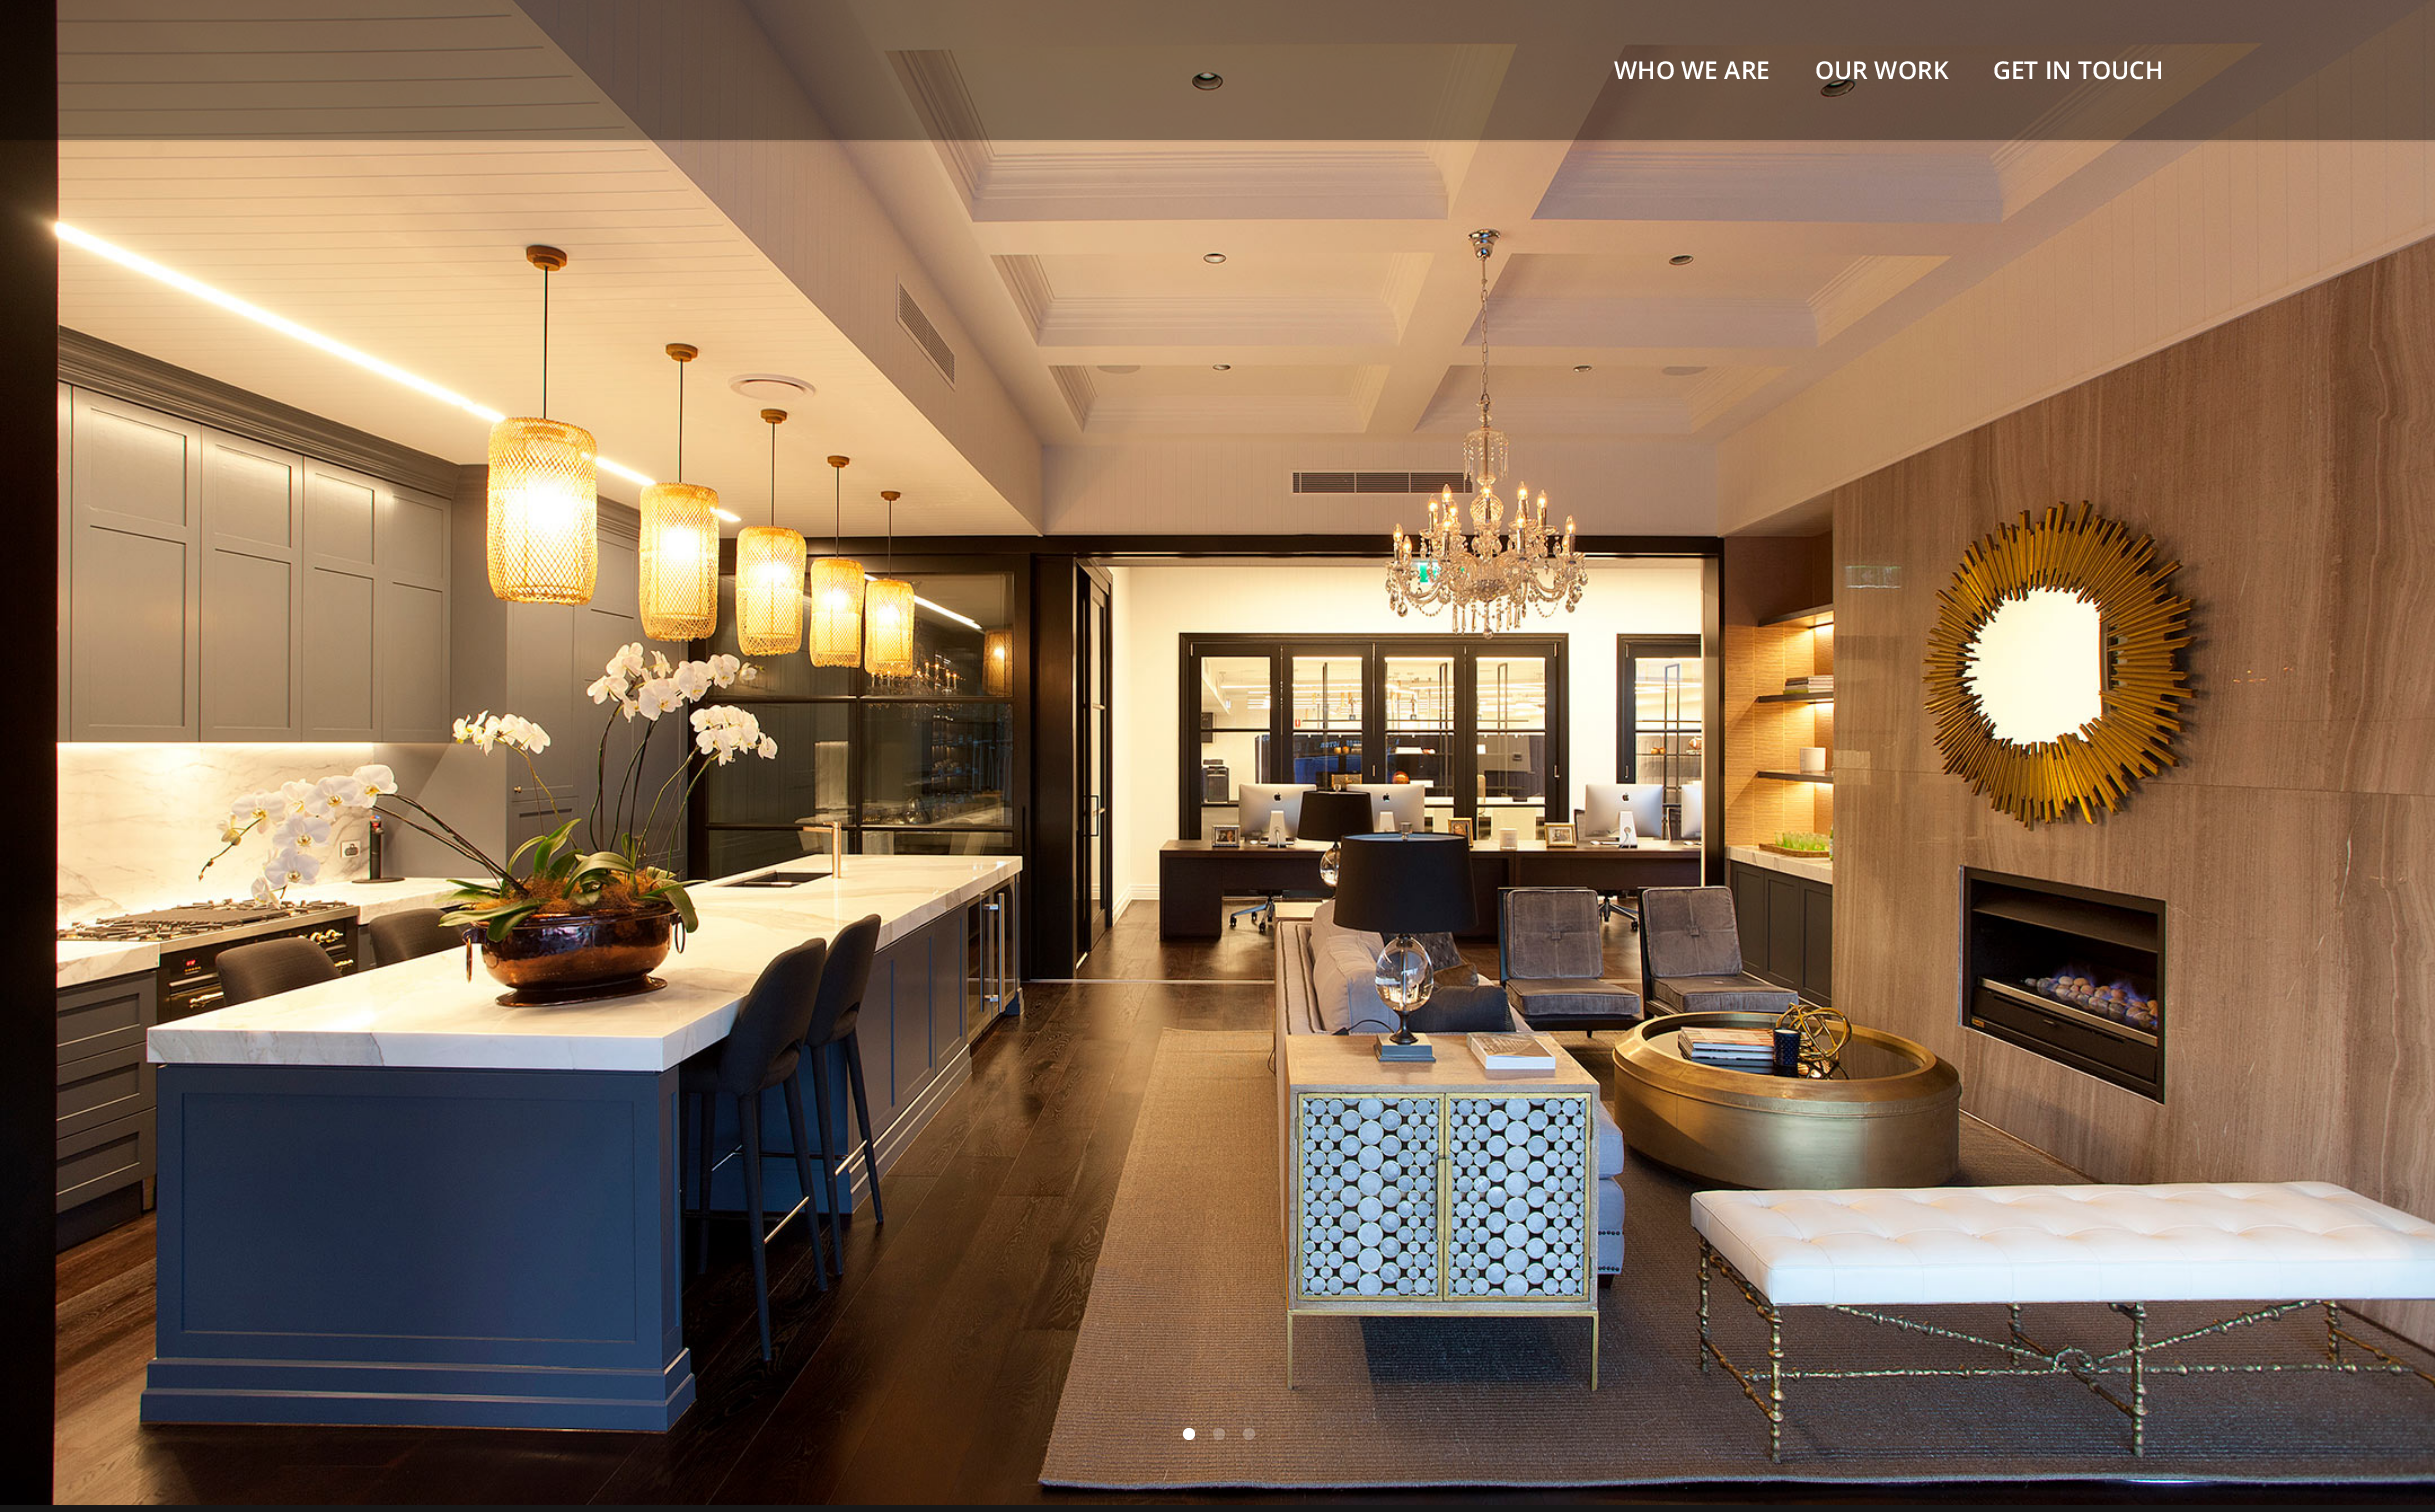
%!PS
<< /PageSize [2435 1512] /PageUsesTransparency true >> setpagedevice
/f/fill load def
/C { dup -16 bitshift 255 div exch dup -8 bitshift 255 and 255 div exch 255 and 255 div setrgbcolor } def
/F { [ exch dup neg 0 0 3 -1 roll 0 0 ] selectfont } def
/T { moveto show } def
/R { rectfill } def
/A { dup .setfillconstantalpha .setstrokeconstantalpha } def
/O { newpath 0 360 arc closepath } def
/I { 5 dict begin { /h /w /y /x /name } { exch def } forall
  gsave x y translate w h scale
  w h 8 [w 0 0 h 0 0] name (r) file false 3 colorimage grestore end } def
0 .pushpdf14devicefilter
0 1512 translate 1 -1 scale
4 setmiterlimit
16#171717 C
0 0 2435 1512 R
(1.rgb) 0 0 2435 1505 I
16#FFFFFF C
1189 1434 6 O f
0.25 A
1219 1434 6 O f
1249 1434 6 O f
0.1 A
16#000000 C
0 140 2435 2 R
0.4 A
0 0 2435 140 R
/OpenSans-SemiBold 24.5 F
1 A
16#FFFFFF C
(WHO WE ARE) 1614 79 T
(OUR WORK) 1815 79 T
(GET IN TOUCH) 1993 79 T
.poppdf14devicefilter showpage
